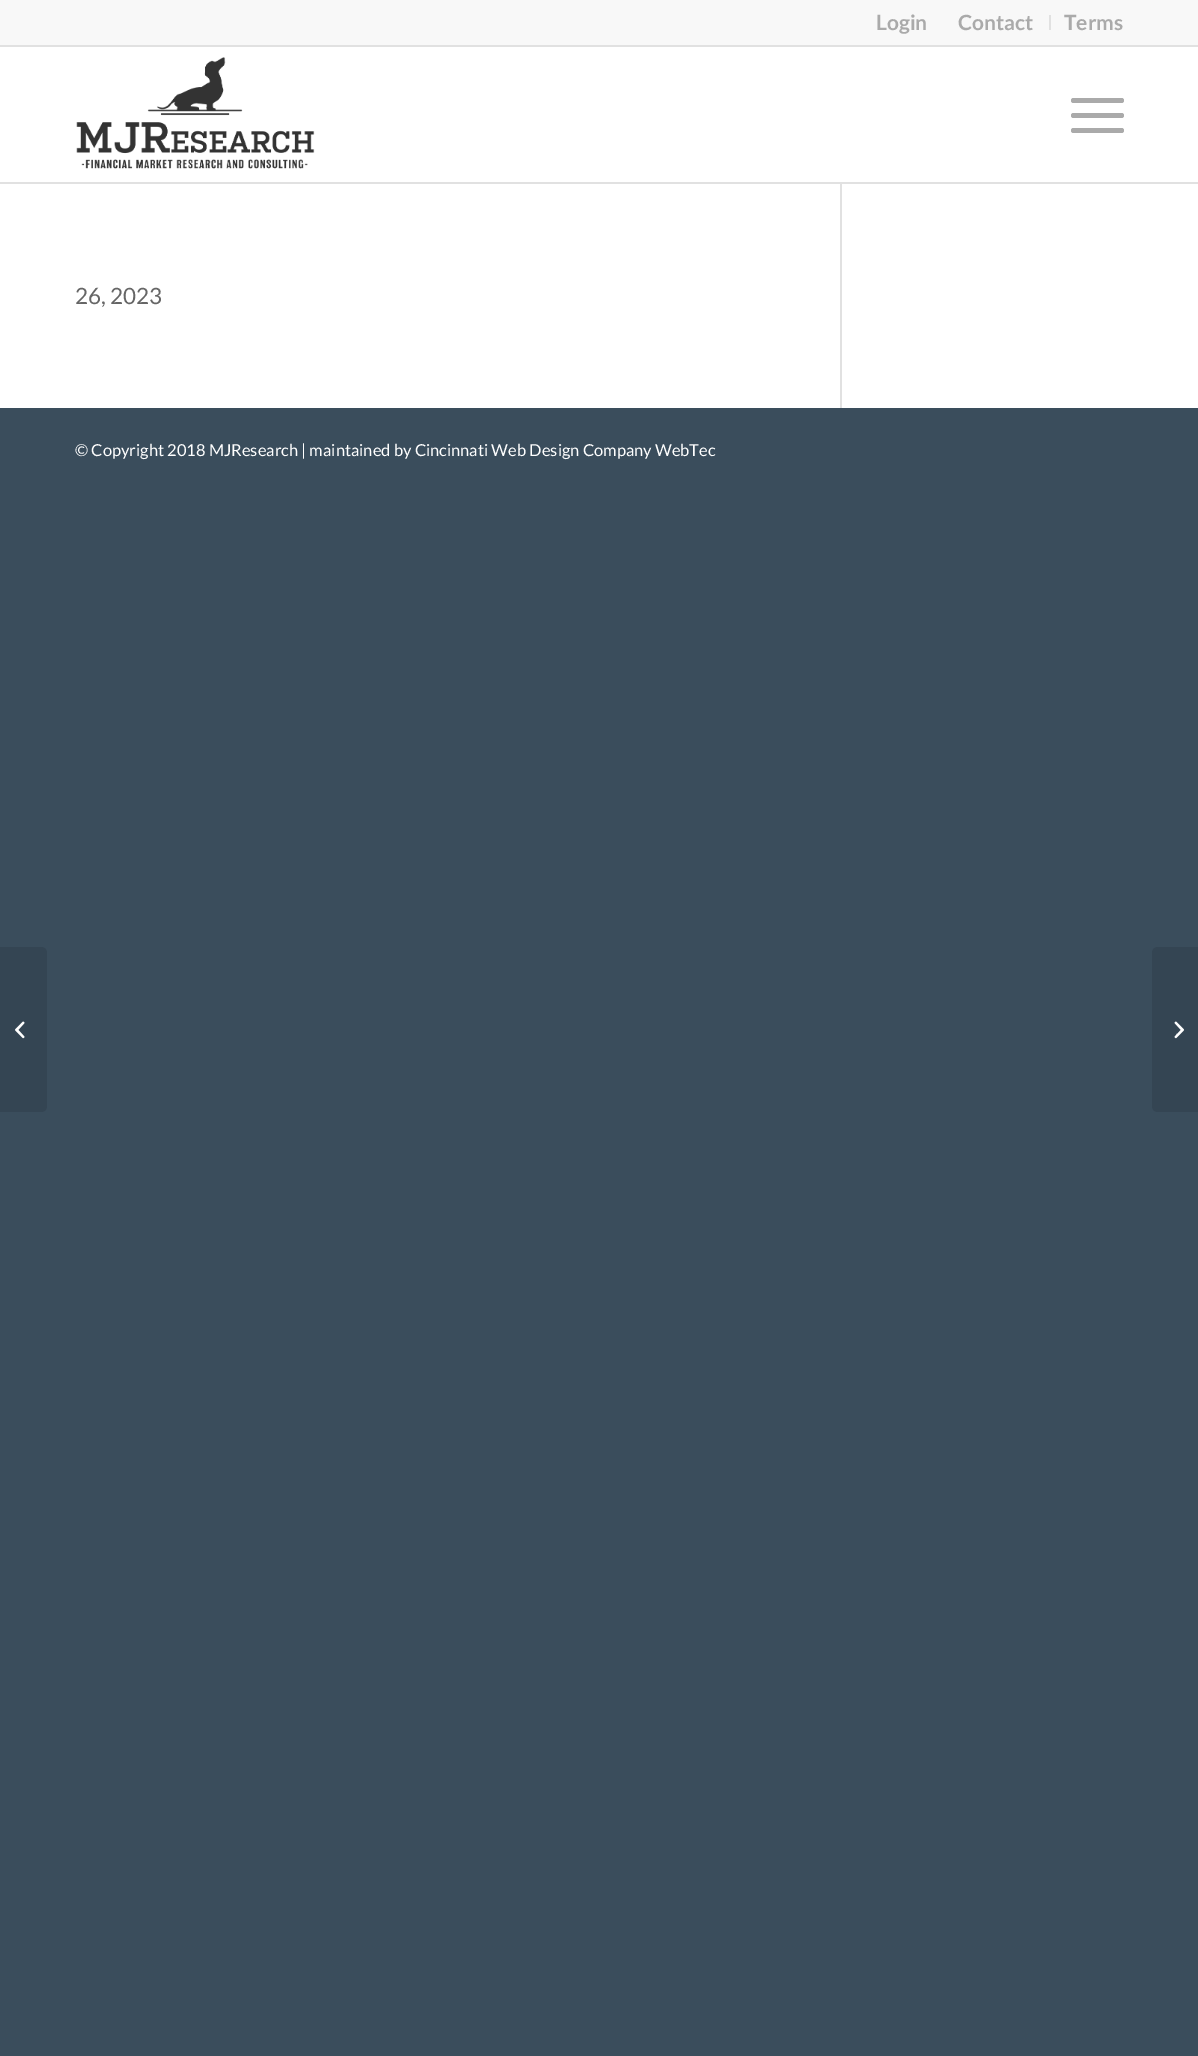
%!PS
<< /PageSize [1198 2056] >> setpagedevice
/m/moveto load def
/l/rlineto load def
/c/rcurveto load def
/z/closepath load def
/f/fill load def
/C { dup -16 bitshift 255 div exch dup -8 bitshift 255 and 255 div exch 255 and 255 div setrgbcolor } def
/F { [ exch dup neg 0 0 3 -1 roll 0 0 ] selectfont } def
/T { moveto show } def
/R { rectfill } def
/Q { 5 dict begin { /r /h /w /y /x } { exch def } forall
  x r add y moveto x w add y 2 copy h add r arct x w add y h add x 1 index r arct
  x y h add x y r arct x y 2 copy exch w add exch r arct closepath end } def
/I { 5 dict begin { /h /w /y /x /name } { exch def } forall
  gsave x y translate w h scale
  w h 8 [w 0 0 h 0 0] name (r) file false 3 colorimage grestore end } def
0 2056 translate 1 -1 scale
4 setmiterlimit
16#3A4D5C C
0 0 1198 2056 R
16#FFFFFF C
0 47 1198 361 R
16#F8F8F8 C
0 0 1198 45 R
16#E1E1E1 C
0 45 1198 2 R
/Lato-Bold 21 F
16#AAAAAA C
(Login) 876 30 T
16#E1E1E1 C
1049 15 2 15 R
16#AAAAAA C
(Contact) 958 30 T
(Terms) 1064 30 T
16#E1E1E1 C
840 183 2 225 R
0 182 1198 2 R
(1.rgb) 76 57 239 112 I
16#AAAAAA C
1071 113 53 5 2.5 Q f
1071 98 53 5 2.5 Q f
1071 128 53 5 2.5 Q f
/Lato-Regular 22.5 F
16#666666 C
(26, 2023) 75 304 T
/Lato-Regular 16.5 F
16#FFFFFF C
(© Copyright 2018 MJResearch | maintained by Cincinnati Web Design Company WebTec) 75 456 T
16#344553 C
0 947 m 41 0 l 3.5 0 6 2.5 6 6 c 0 153 l 0 3.5 -2.5 6 -6 6 c -41 0 l z f
(2.rgb) 15 1021 10 18 I
1158 947 m 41 0 l 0 165 l -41 0 l -3.5 0 -6 -2.5 -6 -6 c 0 -153 l 0 -3.5 2.5 -6 6 -6 c z f
(3.rgb) 1174 1021 10 18 I
showpage
